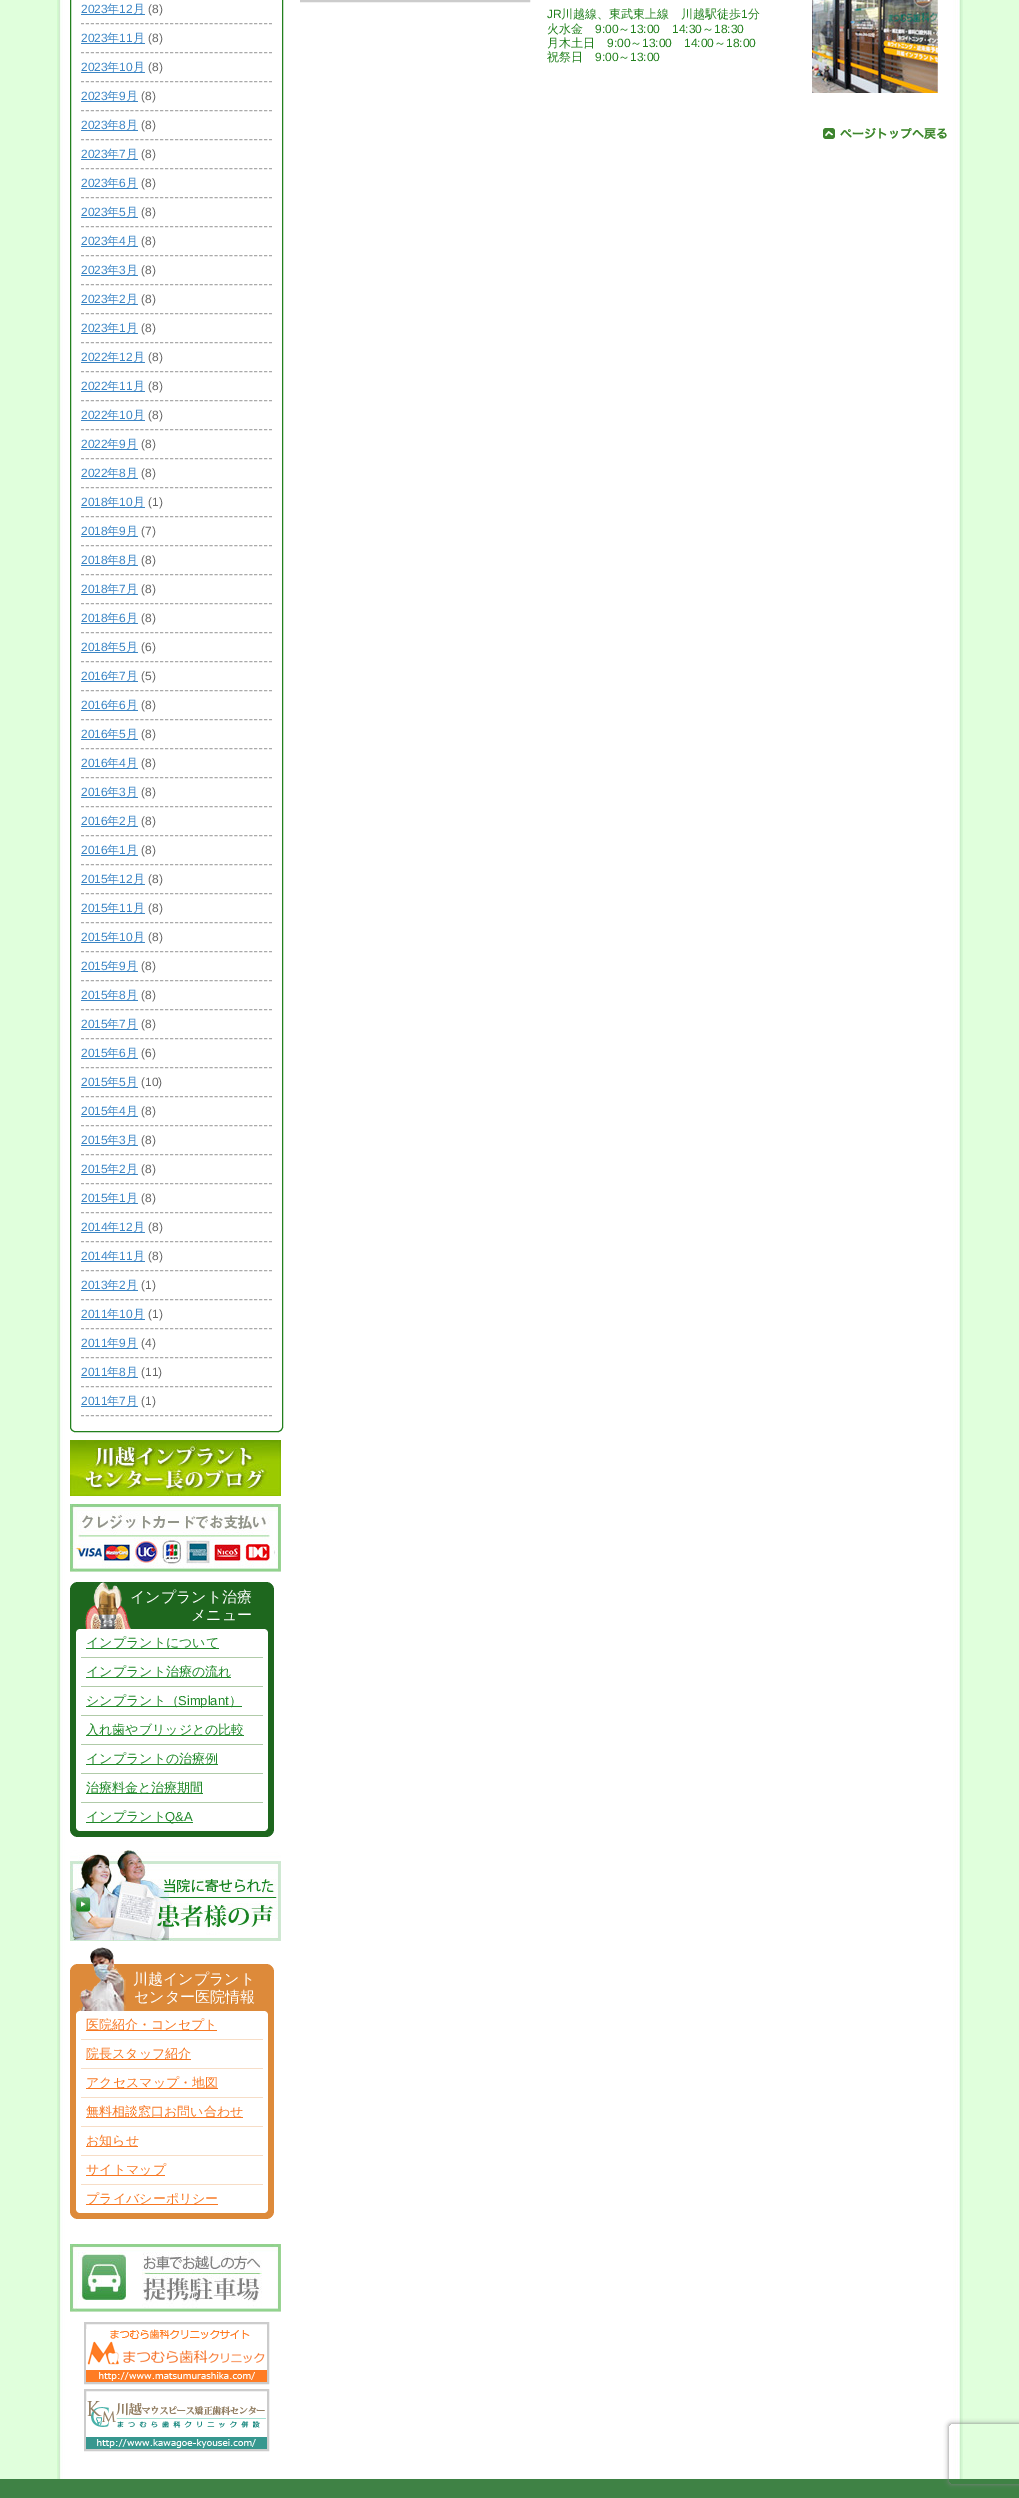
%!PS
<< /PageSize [1019 2498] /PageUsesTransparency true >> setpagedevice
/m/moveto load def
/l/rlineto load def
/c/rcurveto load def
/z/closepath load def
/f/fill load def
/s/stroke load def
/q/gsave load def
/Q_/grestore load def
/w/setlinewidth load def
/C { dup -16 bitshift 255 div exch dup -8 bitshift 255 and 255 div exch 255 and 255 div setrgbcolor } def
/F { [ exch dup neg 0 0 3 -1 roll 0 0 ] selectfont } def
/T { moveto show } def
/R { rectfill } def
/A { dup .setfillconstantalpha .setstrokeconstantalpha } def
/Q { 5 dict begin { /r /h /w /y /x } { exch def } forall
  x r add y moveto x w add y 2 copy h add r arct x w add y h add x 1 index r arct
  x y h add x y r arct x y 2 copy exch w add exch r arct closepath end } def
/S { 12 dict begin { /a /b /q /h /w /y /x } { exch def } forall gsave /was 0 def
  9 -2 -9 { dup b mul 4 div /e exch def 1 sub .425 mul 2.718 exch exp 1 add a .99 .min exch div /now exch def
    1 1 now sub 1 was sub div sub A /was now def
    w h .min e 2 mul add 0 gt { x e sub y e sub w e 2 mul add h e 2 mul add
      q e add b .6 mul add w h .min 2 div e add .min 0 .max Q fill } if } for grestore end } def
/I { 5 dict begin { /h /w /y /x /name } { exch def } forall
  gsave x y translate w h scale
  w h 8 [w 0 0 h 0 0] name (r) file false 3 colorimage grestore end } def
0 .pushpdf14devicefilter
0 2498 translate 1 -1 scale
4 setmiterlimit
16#E0FFDC C
0 0 1019 2498 R
(1.rgb) 57 0 906 2479 I
16#22801D C
70.5 -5.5 m 212 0 l 0 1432.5 l 0 2.5 -2 4.5 -4.5 4.5 c -203 0 l -2.5 0 -4.5 -2 -4.5 -4.5 c z s
16#AAAAAA C
[3 1.95] 0 setdash
81 23.5 m 191 0 l s
/LiberationSans-Regular 12 F
16#3C86C5 C
(2023) 81 13 T
81 14 64 1 R
/WenQuanYiZenHei-Medium 12 F
(年) 107 13 T
/LiberationSans-Regular 12 F
(12) 119 13 T
/WenQuanYiZenHei-Medium 12 F
(月) 133 13 T
/LiberationSans-Regular 12 F
16#666666 C
(\(8\)) 148 13 T
16#AAAAAA C
81 52.5 m 191 0 l s
16#3C86C5 C
(2023) 81 42 T
81 43 64 1 R
/WenQuanYiZenHei-Medium 12 F
(年) 107 42 T
/LiberationSans-Regular 12 F
(11) 119 42 T
/WenQuanYiZenHei-Medium 12 F
(月) 133 42 T
/LiberationSans-Regular 12 F
16#666666 C
(\(8\)) 148 42 T
16#AAAAAA C
81 81.5 m 191 0 l s
16#3C86C5 C
(2023) 81 71 T
81 72 64 1 R
/WenQuanYiZenHei-Medium 12 F
(年) 107 71 T
/LiberationSans-Regular 12 F
(10) 119 71 T
/WenQuanYiZenHei-Medium 12 F
(月) 133 71 T
/LiberationSans-Regular 12 F
16#666666 C
(\(8\)) 148 71 T
16#AAAAAA C
81 110.5 m 191 0 l s
16#3C86C5 C
(2023) 81 100 T
81 101 57 1 R
/WenQuanYiZenHei-Medium 12 F
(年) 107 100 T
/LiberationSans-Regular 12 F
(9) 119 100 T
/WenQuanYiZenHei-Medium 12 F
(月) 126 100 T
/LiberationSans-Regular 12 F
16#666666 C
(\(8\)) 141 100 T
16#AAAAAA C
81 139.5 m 191 0 l s
16#3C86C5 C
(2023) 81 129 T
81 130 57 1 R
/WenQuanYiZenHei-Medium 12 F
(年) 107 129 T
/LiberationSans-Regular 12 F
(8) 119 129 T
/WenQuanYiZenHei-Medium 12 F
(月) 126 129 T
/LiberationSans-Regular 12 F
16#666666 C
(\(8\)) 141 129 T
16#AAAAAA C
81 168.5 m 191 0 l s
16#3C86C5 C
(2023) 81 158 T
81 159 57 1 R
/WenQuanYiZenHei-Medium 12 F
(年) 107 158 T
/LiberationSans-Regular 12 F
(7) 119 158 T
/WenQuanYiZenHei-Medium 12 F
(月) 126 158 T
/LiberationSans-Regular 12 F
16#666666 C
(\(8\)) 141 158 T
16#AAAAAA C
81 197.5 m 191 0 l s
16#3C86C5 C
(2023) 81 187 T
81 188 57 1 R
/WenQuanYiZenHei-Medium 12 F
(年) 107 187 T
/LiberationSans-Regular 12 F
(6) 119 187 T
/WenQuanYiZenHei-Medium 12 F
(月) 126 187 T
/LiberationSans-Regular 12 F
16#666666 C
(\(8\)) 141 187 T
16#AAAAAA C
81 226.5 m 191 0 l s
16#3C86C5 C
(2023) 81 216 T
81 217 57 1 R
/WenQuanYiZenHei-Medium 12 F
(年) 107 216 T
/LiberationSans-Regular 12 F
(5) 119 216 T
/WenQuanYiZenHei-Medium 12 F
(月) 126 216 T
/LiberationSans-Regular 12 F
16#666666 C
(\(8\)) 141 216 T
16#AAAAAA C
81 255.5 m 191 0 l s
16#3C86C5 C
(2023) 81 245 T
81 246 57 1 R
/WenQuanYiZenHei-Medium 12 F
(年) 107 245 T
/LiberationSans-Regular 12 F
(4) 119 245 T
/WenQuanYiZenHei-Medium 12 F
(月) 126 245 T
/LiberationSans-Regular 12 F
16#666666 C
(\(8\)) 141 245 T
16#AAAAAA C
81 284.5 m 191 0 l s
16#3C86C5 C
(2023) 81 274 T
81 275 57 1 R
/WenQuanYiZenHei-Medium 12 F
(年) 107 274 T
/LiberationSans-Regular 12 F
(3) 119 274 T
/WenQuanYiZenHei-Medium 12 F
(月) 126 274 T
/LiberationSans-Regular 12 F
16#666666 C
(\(8\)) 141 274 T
16#AAAAAA C
81 313.5 m 191 0 l s
16#3C86C5 C
(2023) 81 303 T
81 304 57 1 R
/WenQuanYiZenHei-Medium 12 F
(年) 107 303 T
/LiberationSans-Regular 12 F
(2) 119 303 T
/WenQuanYiZenHei-Medium 12 F
(月) 126 303 T
/LiberationSans-Regular 12 F
16#666666 C
(\(8\)) 141 303 T
16#AAAAAA C
81 342.5 m 191 0 l s
16#3C86C5 C
(2023) 81 332 T
81 333 57 1 R
/WenQuanYiZenHei-Medium 12 F
(年) 107 332 T
/LiberationSans-Regular 12 F
(1) 119 332 T
/WenQuanYiZenHei-Medium 12 F
(月) 126 332 T
/LiberationSans-Regular 12 F
16#666666 C
(\(8\)) 141 332 T
16#AAAAAA C
81 371.5 m 191 0 l s
16#3C86C5 C
(2022) 81 361 T
81 362 64 1 R
/WenQuanYiZenHei-Medium 12 F
(年) 107 361 T
/LiberationSans-Regular 12 F
(12) 119 361 T
/WenQuanYiZenHei-Medium 12 F
(月) 133 361 T
/LiberationSans-Regular 12 F
16#666666 C
(\(8\)) 148 361 T
16#AAAAAA C
81 400.5 m 191 0 l s
16#3C86C5 C
(2022) 81 390 T
81 391 64 1 R
/WenQuanYiZenHei-Medium 12 F
(年) 107 390 T
/LiberationSans-Regular 12 F
(11) 119 390 T
/WenQuanYiZenHei-Medium 12 F
(月) 133 390 T
/LiberationSans-Regular 12 F
16#666666 C
(\(8\)) 148 390 T
16#AAAAAA C
81 429.5 m 191 0 l s
16#3C86C5 C
(2022) 81 419 T
81 420 64 1 R
/WenQuanYiZenHei-Medium 12 F
(年) 107 419 T
/LiberationSans-Regular 12 F
(10) 119 419 T
/WenQuanYiZenHei-Medium 12 F
(月) 133 419 T
/LiberationSans-Regular 12 F
16#666666 C
(\(8\)) 148 419 T
16#AAAAAA C
81 458.5 m 191 0 l s
16#3C86C5 C
(2022) 81 448 T
81 449 57 1 R
/WenQuanYiZenHei-Medium 12 F
(年) 107 448 T
/LiberationSans-Regular 12 F
(9) 119 448 T
/WenQuanYiZenHei-Medium 12 F
(月) 126 448 T
/LiberationSans-Regular 12 F
16#666666 C
(\(8\)) 141 448 T
16#AAAAAA C
81 487.5 m 191 0 l s
16#3C86C5 C
(2022) 81 477 T
81 478 57 1 R
/WenQuanYiZenHei-Medium 12 F
(年) 107 477 T
/LiberationSans-Regular 12 F
(8) 119 477 T
/WenQuanYiZenHei-Medium 12 F
(月) 126 477 T
/LiberationSans-Regular 12 F
16#666666 C
(\(8\)) 141 477 T
16#AAAAAA C
81 516.5 m 191 0 l s
16#3C86C5 C
(2018) 81 506 T
81 507 64 1 R
/WenQuanYiZenHei-Medium 12 F
(年) 107 506 T
/LiberationSans-Regular 12 F
(10) 119 506 T
/WenQuanYiZenHei-Medium 12 F
(月) 133 506 T
/LiberationSans-Regular 12 F
16#666666 C
(\(1\)) 148 506 T
16#AAAAAA C
81 545.5 m 191 0 l s
16#3C86C5 C
(2018) 81 535 T
81 536 57 1 R
/WenQuanYiZenHei-Medium 12 F
(年) 107 535 T
/LiberationSans-Regular 12 F
(9) 119 535 T
/WenQuanYiZenHei-Medium 12 F
(月) 126 535 T
/LiberationSans-Regular 12 F
16#666666 C
(\(7\)) 141 535 T
16#AAAAAA C
81 574.5 m 191 0 l s
16#3C86C5 C
(2018) 81 564 T
81 565 57 1 R
/WenQuanYiZenHei-Medium 12 F
(年) 107 564 T
/LiberationSans-Regular 12 F
(8) 119 564 T
/WenQuanYiZenHei-Medium 12 F
(月) 126 564 T
/LiberationSans-Regular 12 F
16#666666 C
(\(8\)) 141 564 T
16#AAAAAA C
81 603.5 m 191 0 l s
16#3C86C5 C
(2018) 81 593 T
81 594 57 1 R
/WenQuanYiZenHei-Medium 12 F
(年) 107 593 T
/LiberationSans-Regular 12 F
(7) 119 593 T
/WenQuanYiZenHei-Medium 12 F
(月) 126 593 T
/LiberationSans-Regular 12 F
16#666666 C
(\(8\)) 141 593 T
16#AAAAAA C
81 632.5 m 191 0 l s
16#3C86C5 C
(2018) 81 622 T
81 623 57 1 R
/WenQuanYiZenHei-Medium 12 F
(年) 107 622 T
/LiberationSans-Regular 12 F
(6) 119 622 T
/WenQuanYiZenHei-Medium 12 F
(月) 126 622 T
/LiberationSans-Regular 12 F
16#666666 C
(\(8\)) 141 622 T
16#AAAAAA C
81 661.5 m 191 0 l s
16#3C86C5 C
(2018) 81 651 T
81 652 57 1 R
/WenQuanYiZenHei-Medium 12 F
(年) 107 651 T
/LiberationSans-Regular 12 F
(5) 119 651 T
/WenQuanYiZenHei-Medium 12 F
(月) 126 651 T
/LiberationSans-Regular 12 F
16#666666 C
(\(6\)) 141 651 T
16#AAAAAA C
81 690.5 m 191 0 l s
16#3C86C5 C
(2016) 81 680 T
81 681 57 1 R
/WenQuanYiZenHei-Medium 12 F
(年) 107 680 T
/LiberationSans-Regular 12 F
(7) 119 680 T
/WenQuanYiZenHei-Medium 12 F
(月) 126 680 T
/LiberationSans-Regular 12 F
16#666666 C
(\(5\)) 141 680 T
16#AAAAAA C
81 719.5 m 191 0 l s
16#3C86C5 C
(2016) 81 709 T
81 710 57 1 R
/WenQuanYiZenHei-Medium 12 F
(年) 107 709 T
/LiberationSans-Regular 12 F
(6) 119 709 T
/WenQuanYiZenHei-Medium 12 F
(月) 126 709 T
/LiberationSans-Regular 12 F
16#666666 C
(\(8\)) 141 709 T
16#AAAAAA C
81 748.5 m 191 0 l s
16#3C86C5 C
(2016) 81 738 T
81 739 57 1 R
/WenQuanYiZenHei-Medium 12 F
(年) 107 738 T
/LiberationSans-Regular 12 F
(5) 119 738 T
/WenQuanYiZenHei-Medium 12 F
(月) 126 738 T
/LiberationSans-Regular 12 F
16#666666 C
(\(8\)) 141 738 T
16#AAAAAA C
81 777.5 m 191 0 l s
16#3C86C5 C
(2016) 81 767 T
81 768 57 1 R
/WenQuanYiZenHei-Medium 12 F
(年) 107 767 T
/LiberationSans-Regular 12 F
(4) 119 767 T
/WenQuanYiZenHei-Medium 12 F
(月) 126 767 T
/LiberationSans-Regular 12 F
16#666666 C
(\(8\)) 141 767 T
16#AAAAAA C
81 806.5 m 191 0 l s
16#3C86C5 C
(2016) 81 796 T
81 797 57 1 R
/WenQuanYiZenHei-Medium 12 F
(年) 107 796 T
/LiberationSans-Regular 12 F
(3) 119 796 T
/WenQuanYiZenHei-Medium 12 F
(月) 126 796 T
/LiberationSans-Regular 12 F
16#666666 C
(\(8\)) 141 796 T
16#AAAAAA C
81 835.5 m 191 0 l s
16#3C86C5 C
(2016) 81 825 T
81 826 57 1 R
/WenQuanYiZenHei-Medium 12 F
(年) 107 825 T
/LiberationSans-Regular 12 F
(2) 119 825 T
/WenQuanYiZenHei-Medium 12 F
(月) 126 825 T
/LiberationSans-Regular 12 F
16#666666 C
(\(8\)) 141 825 T
16#AAAAAA C
81 864.5 m 191 0 l s
16#3C86C5 C
(2016) 81 854 T
81 855 57 1 R
/WenQuanYiZenHei-Medium 12 F
(年) 107 854 T
/LiberationSans-Regular 12 F
(1) 119 854 T
/WenQuanYiZenHei-Medium 12 F
(月) 126 854 T
/LiberationSans-Regular 12 F
16#666666 C
(\(8\)) 141 854 T
16#AAAAAA C
81 893.5 m 191 0 l s
16#3C86C5 C
(2015) 81 883 T
81 884 64 1 R
/WenQuanYiZenHei-Medium 12 F
(年) 107 883 T
/LiberationSans-Regular 12 F
(12) 119 883 T
/WenQuanYiZenHei-Medium 12 F
(月) 133 883 T
/LiberationSans-Regular 12 F
16#666666 C
(\(8\)) 148 883 T
16#AAAAAA C
81 922.5 m 191 0 l s
16#3C86C5 C
(2015) 81 912 T
81 913 64 1 R
/WenQuanYiZenHei-Medium 12 F
(年) 107 912 T
/LiberationSans-Regular 12 F
(11) 119 912 T
/WenQuanYiZenHei-Medium 12 F
(月) 133 912 T
/LiberationSans-Regular 12 F
16#666666 C
(\(8\)) 148 912 T
16#AAAAAA C
81 951.5 m 191 0 l s
16#3C86C5 C
(2015) 81 941 T
81 942 64 1 R
/WenQuanYiZenHei-Medium 12 F
(年) 107 941 T
/LiberationSans-Regular 12 F
(10) 119 941 T
/WenQuanYiZenHei-Medium 12 F
(月) 133 941 T
/LiberationSans-Regular 12 F
16#666666 C
(\(8\)) 148 941 T
16#AAAAAA C
81 980.5 m 191 0 l s
16#3C86C5 C
(2015) 81 970 T
81 971 57 1 R
/WenQuanYiZenHei-Medium 12 F
(年) 107 970 T
/LiberationSans-Regular 12 F
(9) 119 970 T
/WenQuanYiZenHei-Medium 12 F
(月) 126 970 T
/LiberationSans-Regular 12 F
16#666666 C
(\(8\)) 141 970 T
16#AAAAAA C
81 1009.5 m 191 0 l s
16#3C86C5 C
(2015) 81 999 T
81 1000 57 1 R
/WenQuanYiZenHei-Medium 12 F
(年) 107 999 T
/LiberationSans-Regular 12 F
(8) 119 999 T
/WenQuanYiZenHei-Medium 12 F
(月) 126 999 T
/LiberationSans-Regular 12 F
16#666666 C
(\(8\)) 141 999 T
16#AAAAAA C
81 1038.5 m 191 0 l s
16#3C86C5 C
(2015) 81 1028 T
81 1029 57 1 R
/WenQuanYiZenHei-Medium 12 F
(年) 107 1028 T
/LiberationSans-Regular 12 F
(7) 119 1028 T
/WenQuanYiZenHei-Medium 12 F
(月) 126 1028 T
/LiberationSans-Regular 12 F
16#666666 C
(\(8\)) 141 1028 T
16#AAAAAA C
81 1067.5 m 191 0 l s
16#3C86C5 C
(2015) 81 1057 T
81 1058 57 1 R
/WenQuanYiZenHei-Medium 12 F
(年) 107 1057 T
/LiberationSans-Regular 12 F
(6) 119 1057 T
/WenQuanYiZenHei-Medium 12 F
(月) 126 1057 T
/LiberationSans-Regular 12 F
16#666666 C
(\(6\)) 141 1057 T
16#AAAAAA C
81 1096.5 m 191 0 l s
16#3C86C5 C
(2015) 81 1086 T
81 1087 57 1 R
/WenQuanYiZenHei-Medium 12 F
(年) 107 1086 T
/LiberationSans-Regular 12 F
(5) 119 1086 T
/WenQuanYiZenHei-Medium 12 F
(月) 126 1086 T
/LiberationSans-Regular 12 F
16#666666 C
(\(10\)) 141 1086 T
16#AAAAAA C
81 1125.5 m 191 0 l s
16#3C86C5 C
(2015) 81 1115 T
81 1116 57 1 R
/WenQuanYiZenHei-Medium 12 F
(年) 107 1115 T
/LiberationSans-Regular 12 F
(4) 119 1115 T
/WenQuanYiZenHei-Medium 12 F
(月) 126 1115 T
/LiberationSans-Regular 12 F
16#666666 C
(\(8\)) 141 1115 T
16#AAAAAA C
81 1154.5 m 191 0 l s
16#3C86C5 C
(2015) 81 1144 T
81 1145 57 1 R
/WenQuanYiZenHei-Medium 12 F
(年) 107 1144 T
/LiberationSans-Regular 12 F
(3) 119 1144 T
/WenQuanYiZenHei-Medium 12 F
(月) 126 1144 T
/LiberationSans-Regular 12 F
16#666666 C
(\(8\)) 141 1144 T
16#AAAAAA C
81 1183.5 m 191 0 l s
16#3C86C5 C
(2015) 81 1173 T
81 1174 57 1 R
/WenQuanYiZenHei-Medium 12 F
(年) 107 1173 T
/LiberationSans-Regular 12 F
(2) 119 1173 T
/WenQuanYiZenHei-Medium 12 F
(月) 126 1173 T
/LiberationSans-Regular 12 F
16#666666 C
(\(8\)) 141 1173 T
16#AAAAAA C
81 1212.5 m 191 0 l s
16#3C86C5 C
(2015) 81 1202 T
81 1203 57 1 R
/WenQuanYiZenHei-Medium 12 F
(年) 107 1202 T
/LiberationSans-Regular 12 F
(1) 119 1202 T
/WenQuanYiZenHei-Medium 12 F
(月) 126 1202 T
/LiberationSans-Regular 12 F
16#666666 C
(\(8\)) 141 1202 T
16#AAAAAA C
81 1241.5 m 191 0 l s
16#3C86C5 C
(2014) 81 1231 T
81 1232 64 1 R
/WenQuanYiZenHei-Medium 12 F
(年) 107 1231 T
/LiberationSans-Regular 12 F
(12) 119 1231 T
/WenQuanYiZenHei-Medium 12 F
(月) 133 1231 T
/LiberationSans-Regular 12 F
16#666666 C
(\(8\)) 148 1231 T
16#AAAAAA C
81 1270.5 m 191 0 l s
16#3C86C5 C
(2014) 81 1260 T
81 1261 64 1 R
/WenQuanYiZenHei-Medium 12 F
(年) 107 1260 T
/LiberationSans-Regular 12 F
(11) 119 1260 T
/WenQuanYiZenHei-Medium 12 F
(月) 133 1260 T
/LiberationSans-Regular 12 F
16#666666 C
(\(8\)) 148 1260 T
16#AAAAAA C
81 1299.5 m 191 0 l s
16#3C86C5 C
(2013) 81 1289 T
81 1290 57 1 R
/WenQuanYiZenHei-Medium 12 F
(年) 107 1289 T
/LiberationSans-Regular 12 F
(2) 119 1289 T
/WenQuanYiZenHei-Medium 12 F
(月) 126 1289 T
/LiberationSans-Regular 12 F
16#666666 C
(\(1\)) 141 1289 T
16#AAAAAA C
81 1328.5 m 191 0 l s
16#3C86C5 C
(2011) 81 1318 T
81 1319 64 1 R
/WenQuanYiZenHei-Medium 12 F
(年) 107 1318 T
/LiberationSans-Regular 12 F
(10) 119 1318 T
/WenQuanYiZenHei-Medium 12 F
(月) 133 1318 T
/LiberationSans-Regular 12 F
16#666666 C
(\(1\)) 148 1318 T
16#AAAAAA C
81 1357.5 m 191 0 l s
16#3C86C5 C
(2011) 81 1347 T
81 1348 57 1 R
/WenQuanYiZenHei-Medium 12 F
(年) 107 1347 T
/LiberationSans-Regular 12 F
(9) 119 1347 T
/WenQuanYiZenHei-Medium 12 F
(月) 126 1347 T
/LiberationSans-Regular 12 F
16#666666 C
(\(4\)) 141 1347 T
16#AAAAAA C
81 1386.5 m 191 0 l s
16#3C86C5 C
(2011) 81 1376 T
81 1377 57 1 R
/WenQuanYiZenHei-Medium 12 F
(年) 107 1376 T
/LiberationSans-Regular 12 F
(8) 119 1376 T
/WenQuanYiZenHei-Medium 12 F
(月) 126 1376 T
/LiberationSans-Regular 12 F
16#666666 C
(\(11\)) 141 1376 T
16#AAAAAA C
81 1415.5 m 191 0 l s
16#3C86C5 C
(2011) 81 1405 T
81 1406 57 1 R
/WenQuanYiZenHei-Medium 12 F
(年) 107 1405 T
/LiberationSans-Regular 12 F
(7) 119 1405 T
/WenQuanYiZenHei-Medium 12 F
(月) 126 1405 T
/LiberationSans-Regular 12 F
16#666666 C
(\(1\)) 141 1405 T
(2.rgb) 70 1440 211 56 I
(3.rgb) 70 1504 211 68 I
16#1E671E C
70 1582 204 255 8 Q f
(4.rgb) 85 1582 46 47 I
/WenQuanYiZenHei-Medium 15 F
16#FFFFFF C
(インプラント治療) 130 1602 T
(メニュー) 191 1620 T
80 1629 m 184 0 l 2 0 4 2 4 4 c 0 25 l -192 0 l 0 -25 l 0 -2 2 -4 4 -4 c z f
16#B0CBA8 C
81 1657 182 1 R
16#21892A C
86 1648 133 1 R
/WenQuanYiZenHei-Medium 13 F
(インプラントについて) 86 1647 T
16#FFFFFF C
76 1658 192 145 R
16#B0CBA8 C
81 1686 182 1 R
16#21892A C
86 1677 145 1 R
(インプラント治療の流れ) 86 1676 T
16#B0CBA8 C
81 1715 182 1 R
16#21892A C
86 1706 156 1 R
(シンプラント（) 86 1705 T
/LiberationSans-Regular 13 F
(Simplant) 178 1705 T
/WenQuanYiZenHei-Medium 13 F
(）) 229 1705 T
16#B0CBA8 C
81 1744 182 1 R
16#21892A C
86 1735 158 1 R
(入れ歯やブリッジとの比較) 86 1734 T
16#B0CBA8 C
81 1773 182 1 R
16#21892A C
86 1764 132 1 R
(インプラントの治療例) 86 1763 T
16#B0CBA8 C
81 1802 182 1 R
16#21892A C
86 1793 117 1 R
(治療料金と治療期間) 86 1792 T
16#FFFFFF C
76 1803 m 192 0 l 0 24 l 0 2 -2 4 -4 4 c -184 0 l -2 0 -4 -2 -4 -4 c z f
16#21892A C
86 1822 107 1 R
(インプラント) 86 1821 T
/LiberationSans-Regular 13 F
(Q&A) 165 1821 T
(5.rgb) 70 1850 211 91 I
16#DD8A3A C
70 1964 204 255 8 Q f
(6.rgb) 79 1947 47 64 I
/WenQuanYiZenHei-Medium 15 F
16#FFFFFF C
(川越インプラント) 133 1984 T
(センター医院情報) 134 2002 T
80 2011 m 184 0 l 2 0 4 2 4 4 c 0 25 l -192 0 l 0 -25 l 0 -2 2 -4 4 -4 c z f
16#F7DDC6 C
81 2039 182 1 R
16#F77721 C
86 2030 131 1 R
/WenQuanYiZenHei-Medium 13 F
(医院紹介・コンセプト) 86 2029 T
16#FFFFFF C
76 2040 192 145 R
16#F7DDC6 C
81 2068 182 1 R
16#F77721 C
86 2059 105 1 R
(院長スタッフ紹介) 86 2058 T
16#F7DDC6 C
81 2097 182 1 R
16#F77721 C
86 2088 132 1 R
(アクセスマップ・地図) 86 2087 T
16#F7DDC6 C
81 2126 182 1 R
16#F77721 C
86 2117 157 1 R
(無料相談窓口お問い合わせ) 86 2116 T
16#F7DDC6 C
81 2155 182 1 R
16#F77721 C
86 2146 52 1 R
(お知らせ) 86 2145 T
16#F7DDC6 C
81 2184 182 1 R
16#F77721 C
86 2175 79 1 R
(サイトマップ) 86 2174 T
16#FFFFFF C
76 2185 m 192 0 l 0 24 l 0 2 -2 4 -4 4 c -184 0 l -2 0 -4 -2 -4 -4 c z f
16#F77721 C
86 2204 132 1 R
(プライバシーポリシー) 86 2203 T
(7.rgb) 70 2244 211 68 I
16#CCCCCC C
2 w
[] 0 setdash
85 2323 183 60 rectstroke
(8.rgb) 86 2329 181 53 I
85 2390 183 60 rectstroke
(9.rgb) 86 2401 181 48 I
301 -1 228 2 rectstroke
/LiberationSans-Regular 12 F
16#22801D C
(JR) 547 18 T
/WenQuanYiZenHei-Medium 12 F
(川越線、東武東上線　川越駅徒歩) 561 18 T
/LiberationSans-Regular 12 F
(1) 741 18 T
/WenQuanYiZenHei-Medium 12 F
(分) 748 18 T
(火水金) 547 33 T
/LiberationSans-Regular 12 F
(9:00) 595 33 T
/WenQuanYiZenHei-Medium 12 F
(～) 618 33 T
/LiberationSans-Regular 12 F
(13:00) 630 33 T
(14:30) 672 33 T
/WenQuanYiZenHei-Medium 12 F
(～) 702 33 T
/LiberationSans-Regular 12 F
(18:30) 714 33 T
/WenQuanYiZenHei-Medium 12 F
(月木土日) 547 47 T
/LiberationSans-Regular 12 F
(9:00) 607 47 T
/WenQuanYiZenHei-Medium 12 F
(～) 630 47 T
/LiberationSans-Regular 12 F
(13:00) 642 47 T
(14:00) 684 47 T
/WenQuanYiZenHei-Medium 12 F
(～) 714 47 T
/LiberationSans-Regular 12 F
(18:00) 726 47 T
/WenQuanYiZenHei-Medium 12 F
(祝祭日) 547 61 T
/LiberationSans-Regular 12 F
(9:00) 595 61 T
/WenQuanYiZenHei-Medium 12 F
(～) 618 61 T
/LiberationSans-Regular 12 F
(13:00) 630 61 T
(10.rgb) 812 0 126 93 I
(11.rgb) 823 128 124 11 I
16#3F8245 C
0 2479 1019 19 R
q
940 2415 m 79 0 l 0 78 l -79 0 l z 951 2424 m 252 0 l 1 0 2 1 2 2 c 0 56 l 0 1 -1 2 -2 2 c -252 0 l -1 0 -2 -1 -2 -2 c 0 -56 l 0 -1 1 -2 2 -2 c z eoclip newpath
16#808080 C
949 2424 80 60 2 2.5 1 S
Q_
.poppdf14devicefilter showpage
